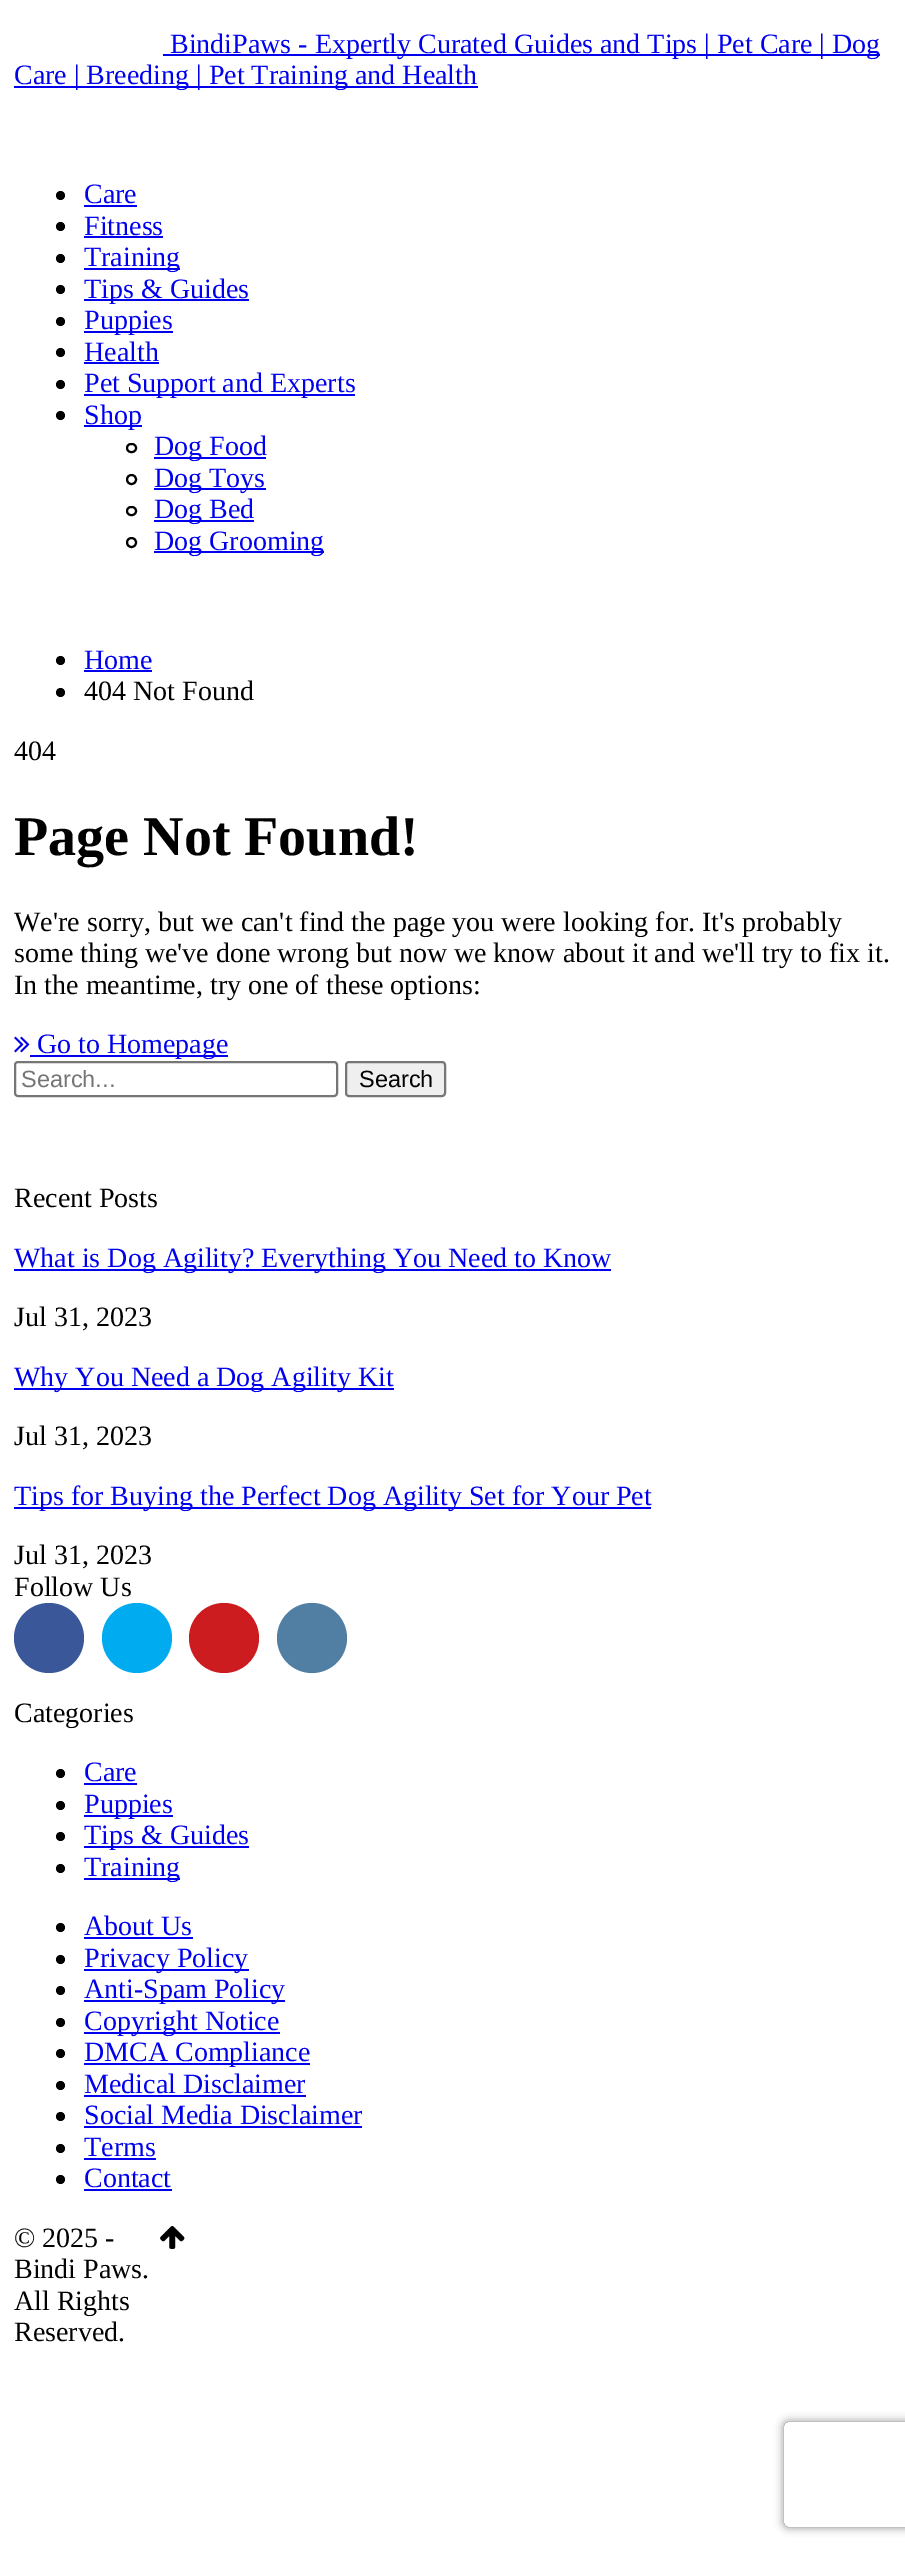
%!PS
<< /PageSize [905 2550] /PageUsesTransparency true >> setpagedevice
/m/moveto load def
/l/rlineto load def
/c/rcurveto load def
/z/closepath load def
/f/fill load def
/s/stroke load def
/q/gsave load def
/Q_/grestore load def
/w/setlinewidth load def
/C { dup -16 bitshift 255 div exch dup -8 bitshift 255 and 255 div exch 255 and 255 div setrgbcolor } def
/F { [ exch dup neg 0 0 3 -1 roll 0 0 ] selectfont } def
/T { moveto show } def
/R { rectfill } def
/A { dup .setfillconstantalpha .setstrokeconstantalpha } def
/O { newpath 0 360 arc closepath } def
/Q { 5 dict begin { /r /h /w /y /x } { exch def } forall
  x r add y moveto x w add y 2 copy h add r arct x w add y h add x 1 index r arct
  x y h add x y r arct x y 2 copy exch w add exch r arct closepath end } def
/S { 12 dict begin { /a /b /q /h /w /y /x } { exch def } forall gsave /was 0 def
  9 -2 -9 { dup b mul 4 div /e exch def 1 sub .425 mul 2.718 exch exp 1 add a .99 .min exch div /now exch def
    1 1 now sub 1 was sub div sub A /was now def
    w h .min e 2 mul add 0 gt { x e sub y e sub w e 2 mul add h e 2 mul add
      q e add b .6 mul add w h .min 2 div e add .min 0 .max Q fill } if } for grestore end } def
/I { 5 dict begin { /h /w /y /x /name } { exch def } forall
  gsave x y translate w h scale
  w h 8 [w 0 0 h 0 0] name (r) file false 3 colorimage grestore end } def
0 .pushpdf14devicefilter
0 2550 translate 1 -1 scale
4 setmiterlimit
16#FFFFFF C
0 0 905 2550 R
16#0000EE C
163 54 717 2 R
/LiberationSerif-Regular 28 F
(BindiPaws - Expertly Curated Guides and Tips | Pet Care | Dog) 170 53 T
14 86 464 2 R
(Care | Breeding | Pet Training and Health) 14 84 T
16#000000 C
60.5 195.5 4.5 O f
16#0000EE C
(Care) 84 203 T
84 205 53 2 R
16#000000 C
60.5 226.5 4.5 O f
16#0000EE C
(Fitness) 84 235 T
84 236 79 2 R
16#000000 C
60.5 258.5 4.5 O f
16#0000EE C
84 268 96 2 R
(Training) 84 266 T
16#000000 C
60.5 289.5 4.5 O f
16#0000EE C
84 299 165 2 R
(Tips & Guides) 84 298 T
16#000000 C
60.5 321.5 4.5 O f
16#0000EE C
84 331 89 2 R
(Puppies) 84 329 T
16#000000 C
60.5 352.5 4.5 O f
16#0000EE C
(Health) 84 361 T
84 362 75 2 R
16#000000 C
60.5 384.5 4.5 O f
16#0000EE C
84 394 271 2 R
(Pet Support and Experts) 84 392 T
16#000000 C
60.5 415.5 4.5 O f
16#0000EE C
84 425 58 2 R
(Shop) 84 424 T
16#000000 C
2 w
127 444 9 8 4 Q s
16#0000EE C
154 457 112 2 R
(Dog Food) 154 455 T
16#000000 C
131.5 479.5 4.5 O s
16#0000EE C
154 488 112 2 R
(Dog Toys) 154 487 T
16#000000 C
127 507 9 8 4 Q s
16#0000EE C
154 520 100 2 R
(Dog Bed) 154 518 T
16#000000 C
131.5 542.5 4.5 O s
16#0000EE C
154 551 170 2 R
(Dog Grooming) 154 550 T
16#000000 C
60.5 660.5 4.5 O f
16#0000EE C
(Home) 84 669 T
84 670 68 2 R
16#000000 C
60.5 692.5 4.5 O f
(404 Not Found) 84 700 T
(404) 14 760 T
/LiberationSerif-Bold 56 F
(Page Not Found!) 14 855 T
/LiberationSerif-Regular 28 F
(We're sorry, but we can't find the page you were looking for. It's probably) 14 931 T
(some thing we've done wrong but now we know about it and we'll try to fix it.) 14 962 T
(In the meantime, try one of these options:) 14 994 T
(1.rgb) 14 1036 16 17 I
16#0000EE C
30 1055 198 2 R
(Go to Homepage) 37 1053 T
16#767676 C
15 1062 322 34 3 Q s
/LiberationSans-Regular 23.5 F
16#757575 C
(Search...) 21 1087 T
16#EFEFEF C
346 1062 99 34 3 Q q f Q_
16#767676 C
s
16#000000 C
(Search) 359 1087 T
/LiberationSerif-Regular 28 F
(Recent Posts) 14 1207 T
16#0000EE C
14 1269 597 2 R
(What is Dog Agility? Everything You Need to Know) 14 1267 T
16#000000 C
(Jul 31, 2023) 14 1326 T
16#0000EE C
14 1388 380 2 R
(Why You Need a Dog Agility Kit) 14 1386 T
16#000000 C
(Jul 31, 2023) 14 1445 T
16#0000EE C
14 1507 637 2 R
(Tips for Buying the Perfect Dog Agility Set for Your Pet) 14 1505 T
16#000000 C
(Jul 31, 2023) 14 1564 T
(Follow Us) 14 1596 T
16#3A579A C
49 1638 35 O f
16#00ABF0 C
137 1638 35 O f
16#CD1C1F C
224 1638 35 O f
16#517FA4 C
312 1638 35 O f
16#000000 C
(Categories) 14 1722 T
60.5 1773.5 4.5 O f
16#0000EE C
(Care) 84 1781 T
84 1783 53 2 R
16#000000 C
60.5 1805.5 4.5 O f
16#0000EE C
84 1815 89 2 R
(Puppies) 84 1813 T
16#000000 C
60.5 1836.5 4.5 O f
16#0000EE C
84 1846 165 2 R
(Tips & Guides) 84 1844 T
16#000000 C
60.5 1868.5 4.5 O f
16#0000EE C
84 1878 96 2 R
(Training) 84 1876 T
16#000000 C
60.5 1927.5 4.5 O f
16#0000EE C
(About Us) 84 1935 T
84 1937 109 2 R
16#000000 C
60.5 1959.5 4.5 O f
16#0000EE C
84 1969 165 2 R
(Privacy Policy) 84 1967 T
16#000000 C
60.5 1990.5 4.5 O f
16#0000EE C
84 2000 201 2 R
(Anti-Spam Policy) 84 1998 T
16#000000 C
60.5 2022.5 4.5 O f
16#0000EE C
84 2032 196 2 R
(Copyright Notice) 84 2030 T
16#000000 C
60.5 2053.5 4.5 O f
16#0000EE C
84 2063 226 2 R
(DMCA Compliance) 84 2061 T
16#000000 C
60.5 2085.5 4.5 O f
16#0000EE C
(Medical Disclaimer) 84 2093 T
84 2095 222 2 R
16#000000 C
60.5 2116.5 4.5 O f
16#0000EE C
(Social Media Disclaimer) 84 2124 T
84 2126 278 2 R
16#000000 C
60.5 2148.5 4.5 O f
16#0000EE C
(Terms) 84 2156 T
84 2158 72 2 R
16#000000 C
60.5 2179.5 4.5 O f
16#0000EE C
(Contact) 84 2187 T
84 2189 88 2 R
16#000000 C
(© 2025 -) 14 2247 T
(Bindi Paws.) 14 2278 T
(All Rights) 14 2310 T
(Reserved.) 14 2341 T
(2.rgb) 160 2226 25 23 I
q
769 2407 m 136 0 l 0 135 l -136 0 l z 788 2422 m 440 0 l 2 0 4 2 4 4 c 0 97 l 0 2 -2 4 -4 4 c -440 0 l -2 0 -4 -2 -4 -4 c 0 -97 l 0 -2 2 -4 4 -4 c z eoclip newpath
16#808080 C
784 2422 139 105 4 4.5 1 S
Q_
.poppdf14devicefilter showpage
